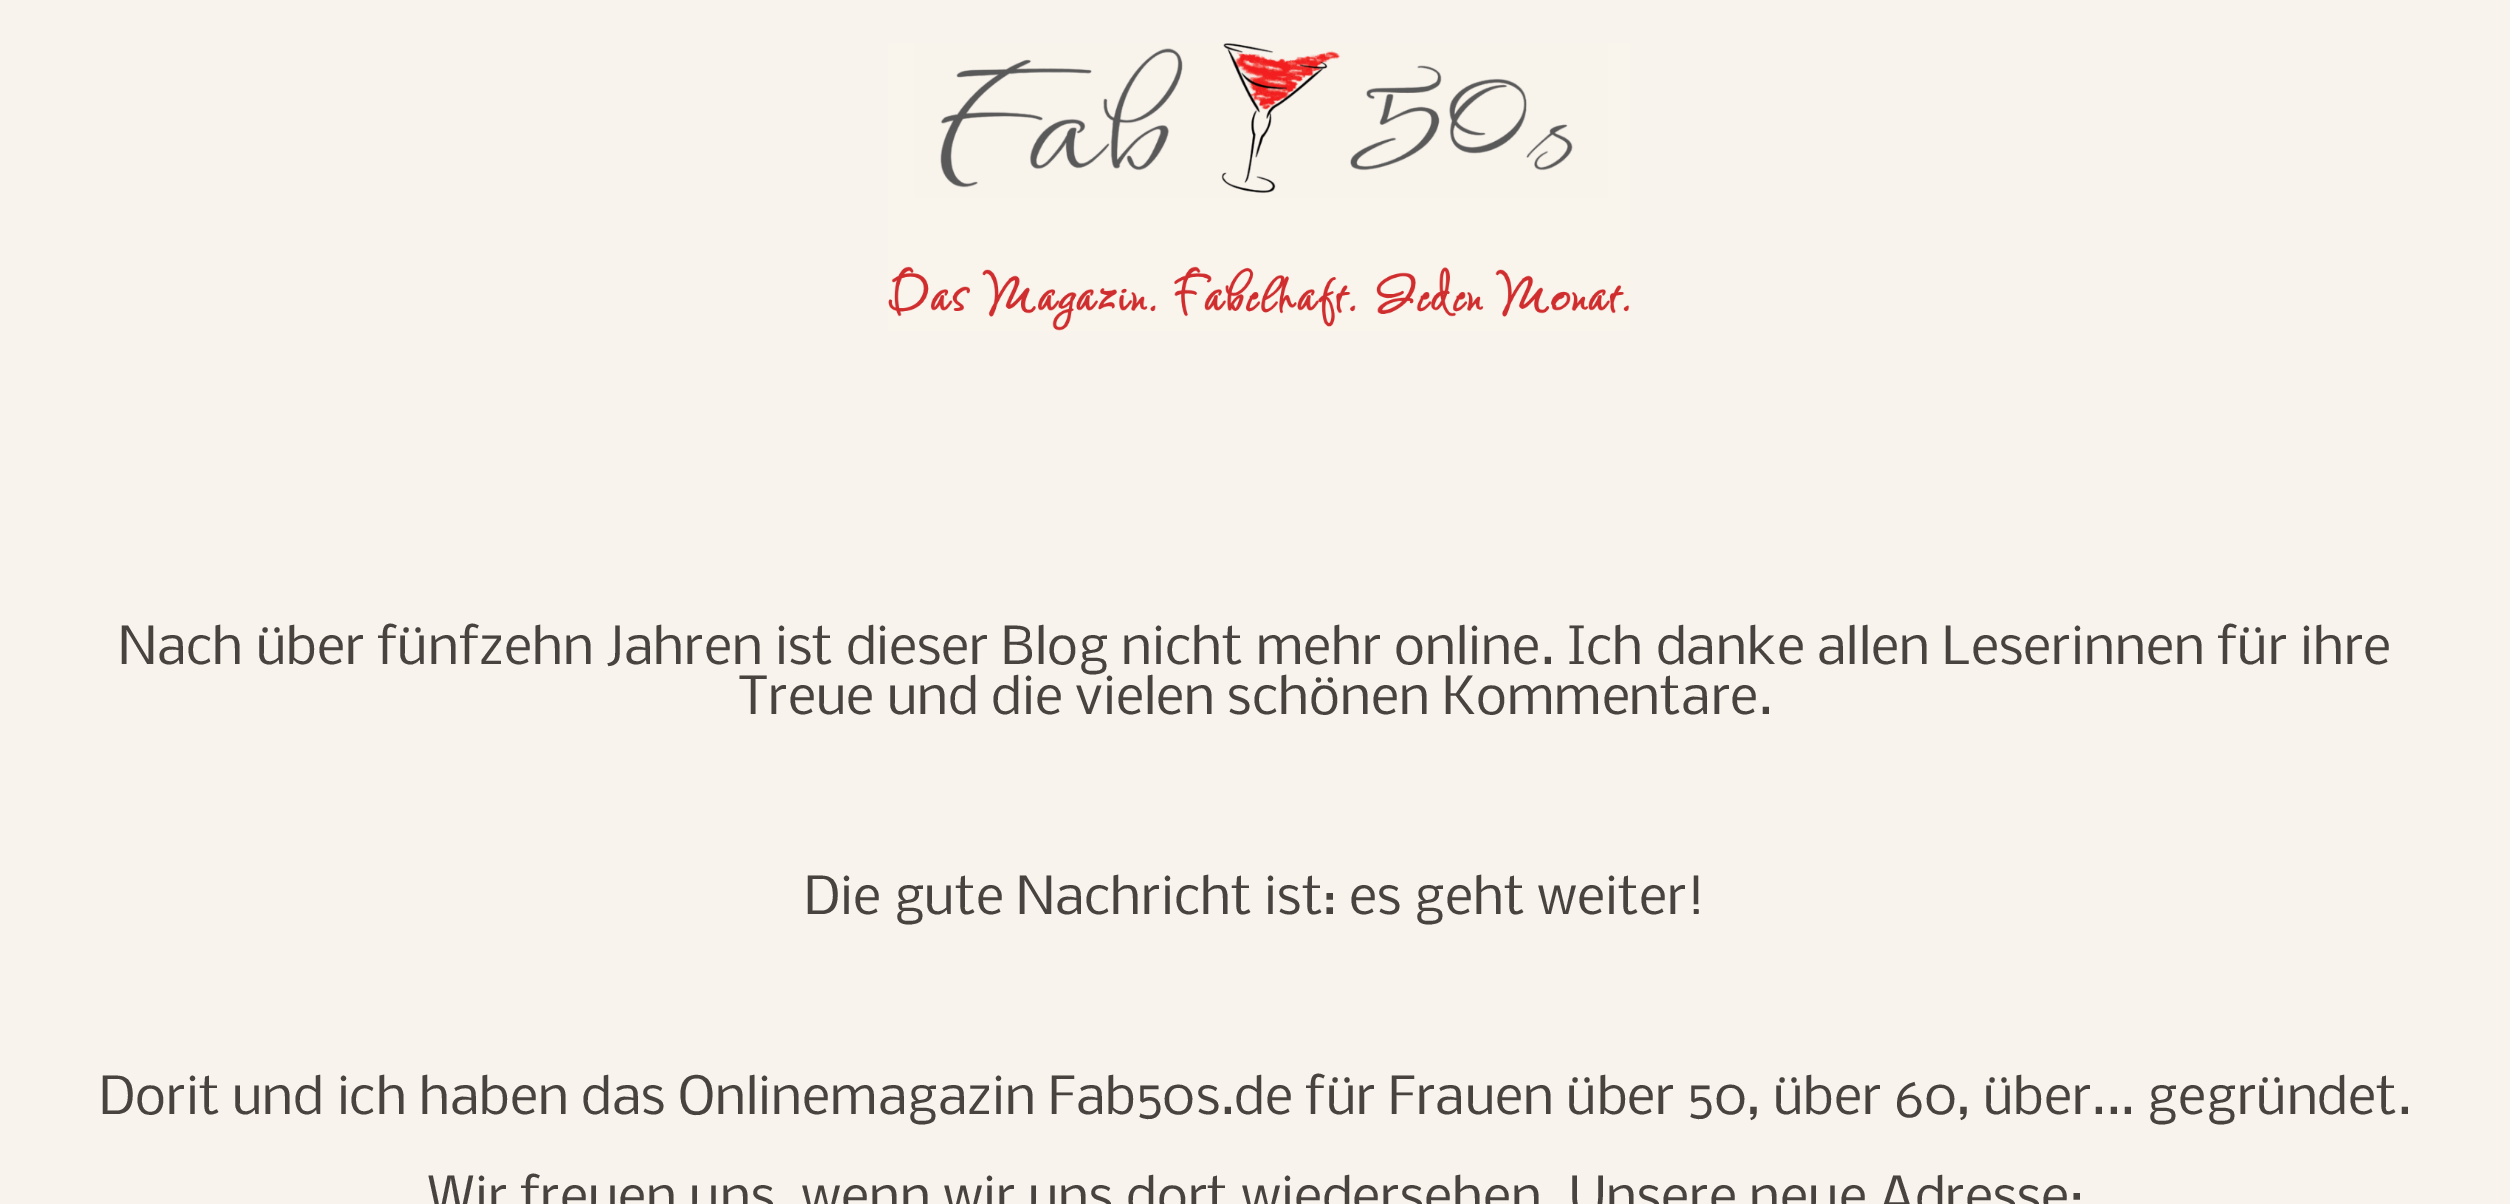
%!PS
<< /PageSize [2510 1204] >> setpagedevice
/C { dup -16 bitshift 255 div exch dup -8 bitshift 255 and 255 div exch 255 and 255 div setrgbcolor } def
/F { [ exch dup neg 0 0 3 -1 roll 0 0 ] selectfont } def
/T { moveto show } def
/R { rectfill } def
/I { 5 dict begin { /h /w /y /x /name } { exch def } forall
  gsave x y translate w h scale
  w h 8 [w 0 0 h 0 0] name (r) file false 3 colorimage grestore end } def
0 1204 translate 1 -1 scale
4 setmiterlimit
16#F9F3ED C
0 0 2510 1204 R
(1.rgb) 888 43 742 288 I
/Nobile-Regular 50 F
16#48433F C
(Nach über fünfzehn Jahren ist dieser Blog nicht mehr online. Ich danke allen Leserinnen für ihre) 118 664 T
(Treue und die vielen schönen Kommentare.) 738 714 T
(Die gute Nachricht ist: es geht weiter!) 804 914 T
(Dorit und ich haben das Onlinemagazin Fab50s.de für Frauen über 50, über 60, über... gegründet.) 99 1114 T
(Wir freuen uns, wenn wir uns dort wiedersehen. Unsere neue Adresse:) 427 1214 T
showpage
